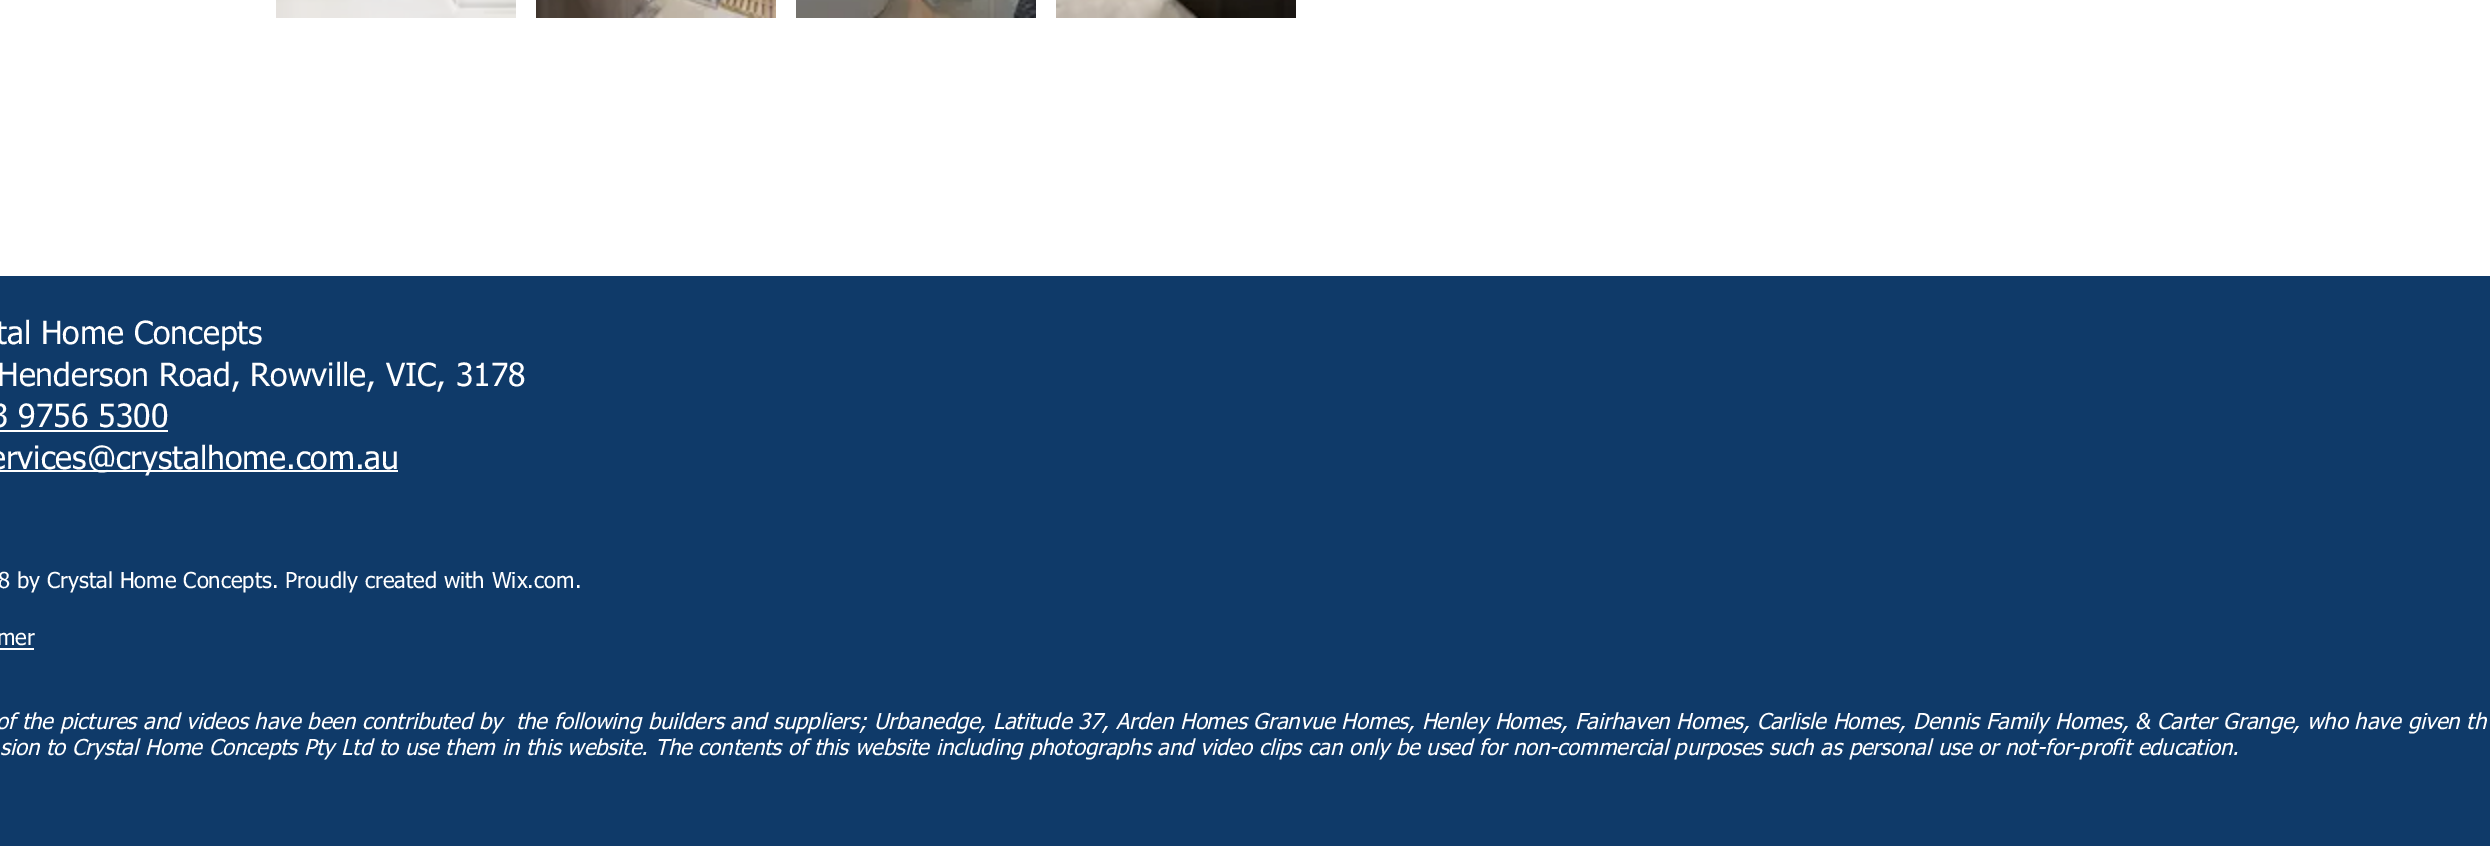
%!PS
<< /PageSize [2490 846] >> setpagedevice
/C { dup -16 bitshift 255 div exch dup -8 bitshift 255 and 255 div exch 255 and 255 div setrgbcolor } def
/F { [ exch dup neg 0 0 3 -1 roll 0 0 ] selectfont } def
/T { moveto show } def
/R { rectfill } def
/I { 5 dict begin { /h /w /y /x /name } { exch def } forall
  gsave x y translate w h scale
  w h 8 [w 0 0 h 0 0] name (r) file false 3 colorimage grestore end } def
0 846 translate 1 -1 scale
4 setmiterlimit
16#FFFFFF C
0 0 2490 846 R
(1.rgb) 276 0 240 18 I
(2.rgb) 536 0 240 18 I
(3.rgb) 796 0 240 18 I
(4.rgb) 1056 0 240 18 I
16#0F3A69 C
0 276 2490 570 R
/tahoma-Regular 32 F
16#FFFFFF C
(tal Home Concepts) -4 344 T
(Henderson Road, Rowville, VIC, 3178) -3 386 T
(3 9756 5300) -9 427 T
0 430 168 2 R
0 470 398 2 R
(ervices@crystalhome.com.au) -11 469 T
/tahoma-Regular 22 F
(8 by Crystal Home Concepts. Proudly created with Wix.com.) -2 588 T
(mer) -3 645 T
0 648 34 2 R
/tahoma-Italic 22 F
(of the pictures and videos have been contributed by  the following builders and suppliers; Urbanedge, Latitude 37, Arden Homes Granvue Homes, Henley Homes, Fairhaven Homes, Carlisle Homes, Dennis Family Homes, & Carter Grange, who have given th) -4 729 T
(sion to Crystal Home Concepts Pty Ltd to use them in this website. The contents of this website including photographs and video clips can only be used for non-commercial purposes such as personal use or not-for-profit education.) 0 755 T
showpage
